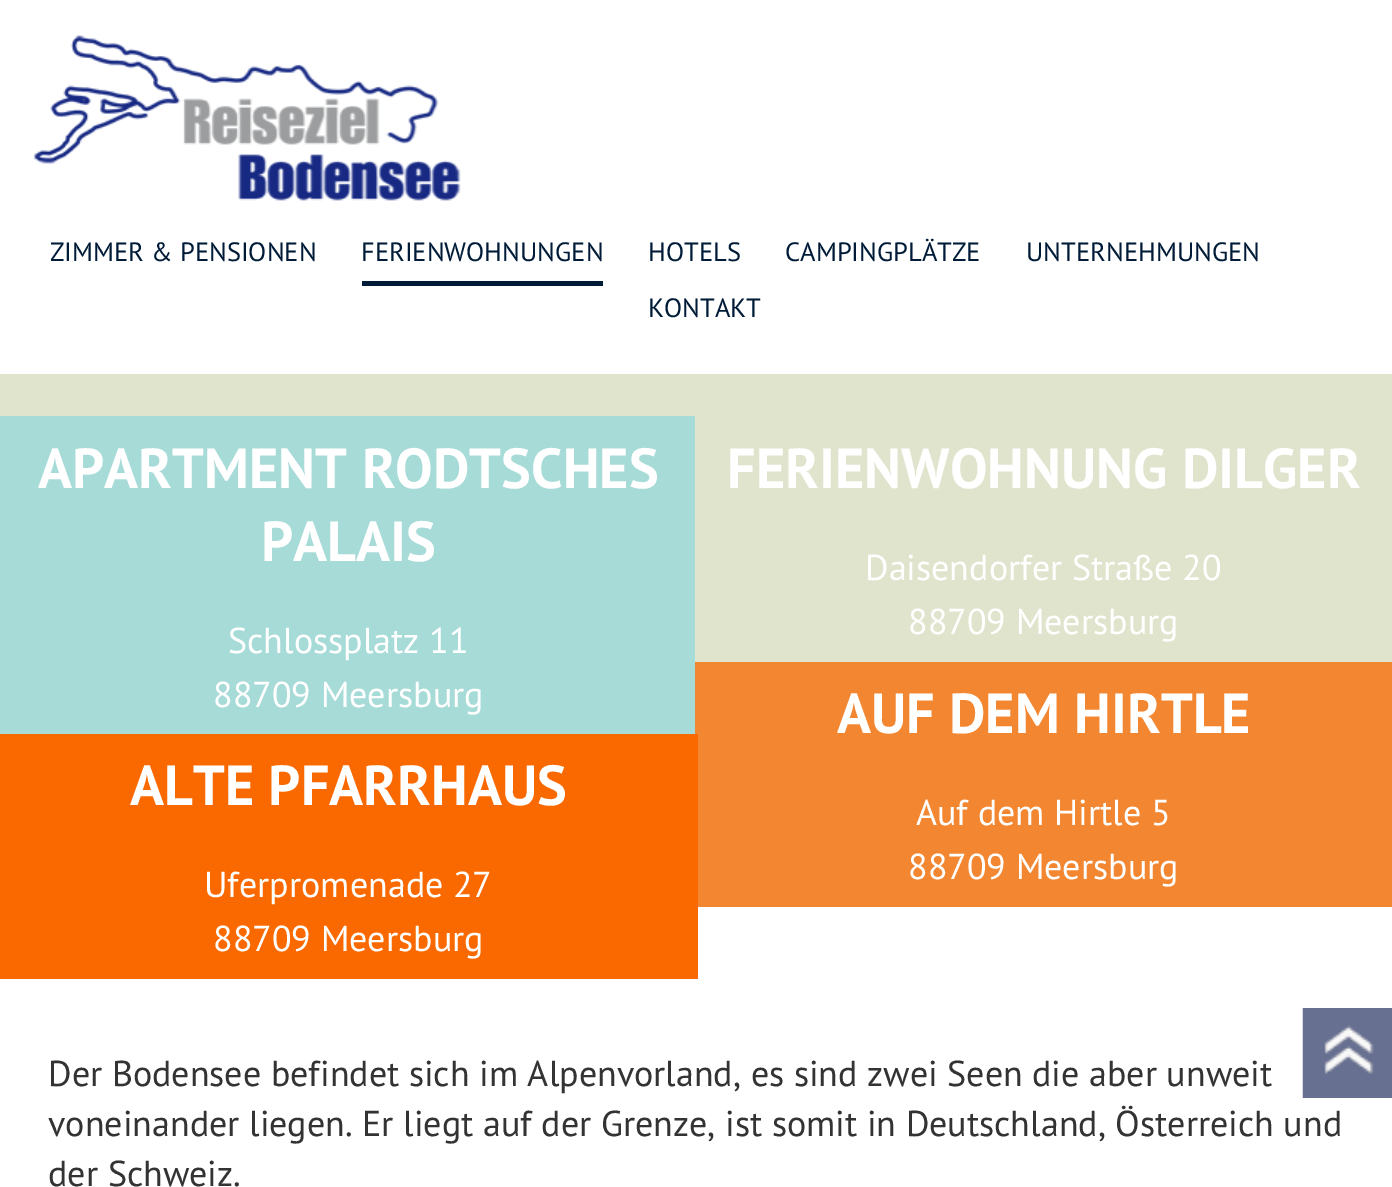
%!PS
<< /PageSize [1392 1187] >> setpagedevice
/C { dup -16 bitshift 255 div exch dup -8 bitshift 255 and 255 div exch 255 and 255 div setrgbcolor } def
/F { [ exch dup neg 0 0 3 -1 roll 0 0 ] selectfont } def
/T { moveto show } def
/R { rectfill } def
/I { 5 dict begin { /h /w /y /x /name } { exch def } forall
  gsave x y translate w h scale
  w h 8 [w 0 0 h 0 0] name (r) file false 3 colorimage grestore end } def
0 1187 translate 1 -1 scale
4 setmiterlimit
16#FFFFFF C
0 0 1392 1187 R
(1.rgb) 34 35 427 166 I
/PTSans-Regular 26.5 F
16#001B37 C
(ZIMMER & PENSIONEN) 50 261 T
362 281 241 5 R
(FERIENWOHNUNGEN) 361 261 T
(HOTELS) 648 261 T
(CAMPINGPLÄTZE) 785 261 T
(UNTERNEHMUNGEN) 1026 261 T
(KONTAKT) 648 317 T
16#E0E4CC C
0 374 1392 42 R
16#A7DBD8 C
0 416 695 318 R
/PTSans-Bold 56.25 F
16#FFFFFF C
(APARTMENT RODTSCHES) 38 488 T
(PALAIS) 261 561 T
/PTSans-Regular 36 F
(Schlossplatz 11) 228 653 T
(88709 Meersburg) 213 707 T
16#E0E4CC C
695 416 697 246 R
/PTSans-Bold 56.25 F
16#FFFFFF C
(FERIENWOHNUNG DILGER) 727 488 T
/PTSans-Regular 36 F
(Daisendorfer Straße 20) 865 580 T
(88709 Meersburg) 908 634 T
16#F38630 C
695 662 697 245 R
16#FA6900 C
0 734 698 245 R
/PTSans-Bold 56.25 F
16#FFFFFF C
(ALTE PFARRHAUS) 130 805 T
/PTSans-Regular 36 F
(Uferpromenade 27) 204 897 T
(88709 Meersburg) 213 951 T
/PTSans-Bold 56.25 F
(AUF DEM HIRTLE) 837 733 T
/PTSans-Regular 36 F
(Auf dem Hirtle 5) 916 825 T
(88709 Meersburg) 908 879 T
16#333333 C
(Der Bodensee befindet sich im Alpenvorland, es sind zwei Seen die aber unweit) 48 1086 T
(voneinander liegen. Er liegt auf der Grenze, ist somit in Deutschland, Österreich und) 48 1136 T
(der Schweiz.) 48 1186 T
(2.rgb) 1302 1008 90 90 I
showpage
